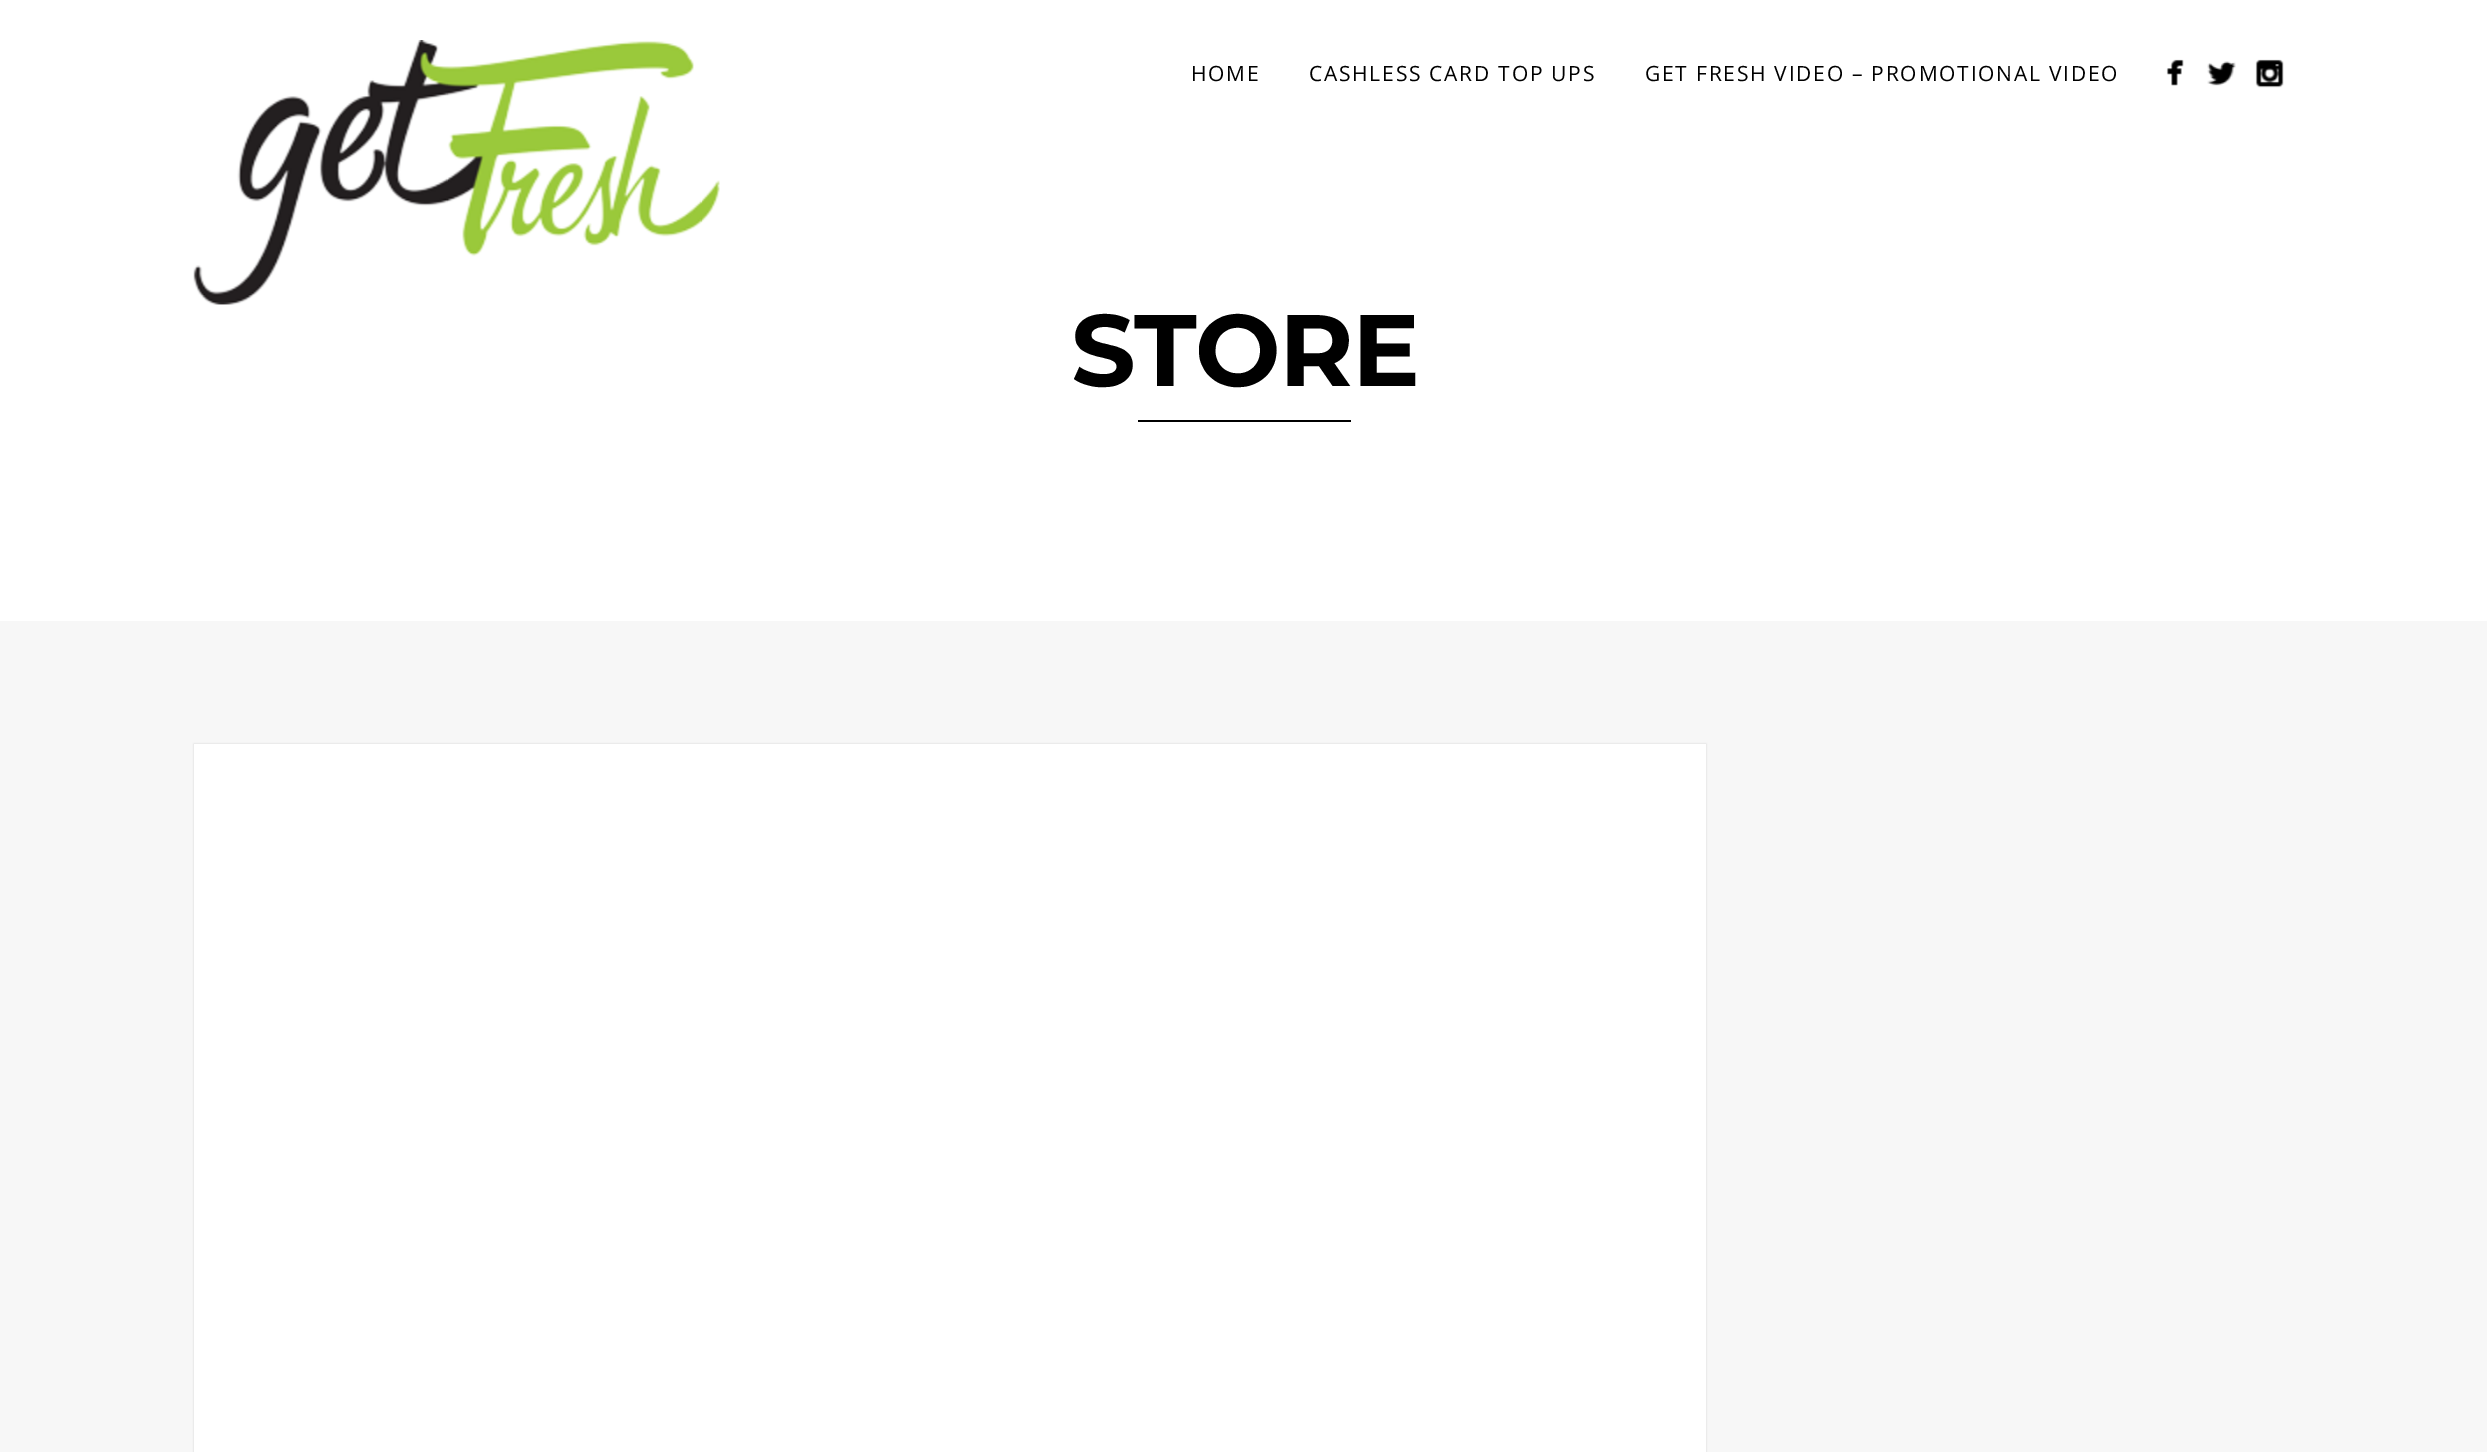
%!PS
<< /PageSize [2487 1452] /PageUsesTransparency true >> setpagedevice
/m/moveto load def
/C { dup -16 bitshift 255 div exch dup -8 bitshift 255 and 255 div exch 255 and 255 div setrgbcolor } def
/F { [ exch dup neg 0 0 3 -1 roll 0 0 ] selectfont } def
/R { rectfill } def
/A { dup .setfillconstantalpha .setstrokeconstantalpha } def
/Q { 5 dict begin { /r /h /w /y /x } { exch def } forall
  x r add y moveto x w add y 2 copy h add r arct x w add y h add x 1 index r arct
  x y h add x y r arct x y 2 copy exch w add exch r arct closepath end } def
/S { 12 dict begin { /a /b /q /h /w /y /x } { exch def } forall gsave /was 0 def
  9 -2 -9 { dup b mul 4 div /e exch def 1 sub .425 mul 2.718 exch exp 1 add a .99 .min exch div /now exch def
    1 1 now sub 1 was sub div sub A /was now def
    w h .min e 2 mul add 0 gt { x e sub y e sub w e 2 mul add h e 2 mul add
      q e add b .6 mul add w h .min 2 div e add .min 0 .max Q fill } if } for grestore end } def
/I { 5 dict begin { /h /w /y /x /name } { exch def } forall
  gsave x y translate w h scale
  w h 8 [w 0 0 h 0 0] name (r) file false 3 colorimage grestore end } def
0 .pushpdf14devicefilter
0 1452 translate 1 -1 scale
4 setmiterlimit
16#F7F7F7 C
0 0 2487 1452 R
16#FFFFFF C
0 0 2487 621 R
(1.rgb) 193 40 527 265 I
/OpenSans-Regular 21 F
16#000000 C
1191 81 m 1.75 0 (HOME) ashow
1309 81 m 1.75 0 (CASHLESS CARD TOP UPS) ashow
1645 81 m 1.75 0 (GET FRESH VIDEO – PROMOTIONAL VIDEO) ashow
(2.rgb) 2166 59 18 27 I
(3.rgb) 2207 61 29 25 I
(4.rgb) 2255 59 29 29 I
/Montserrat-Bold 101.5 F
1071 386 m -1.75 0 (STORE) ashow
1138 420 213 2 R
194 744 1512 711 0 1 .15 S
16#FFFFFF C
194 744 1512 708 R
.poppdf14devicefilter showpage
